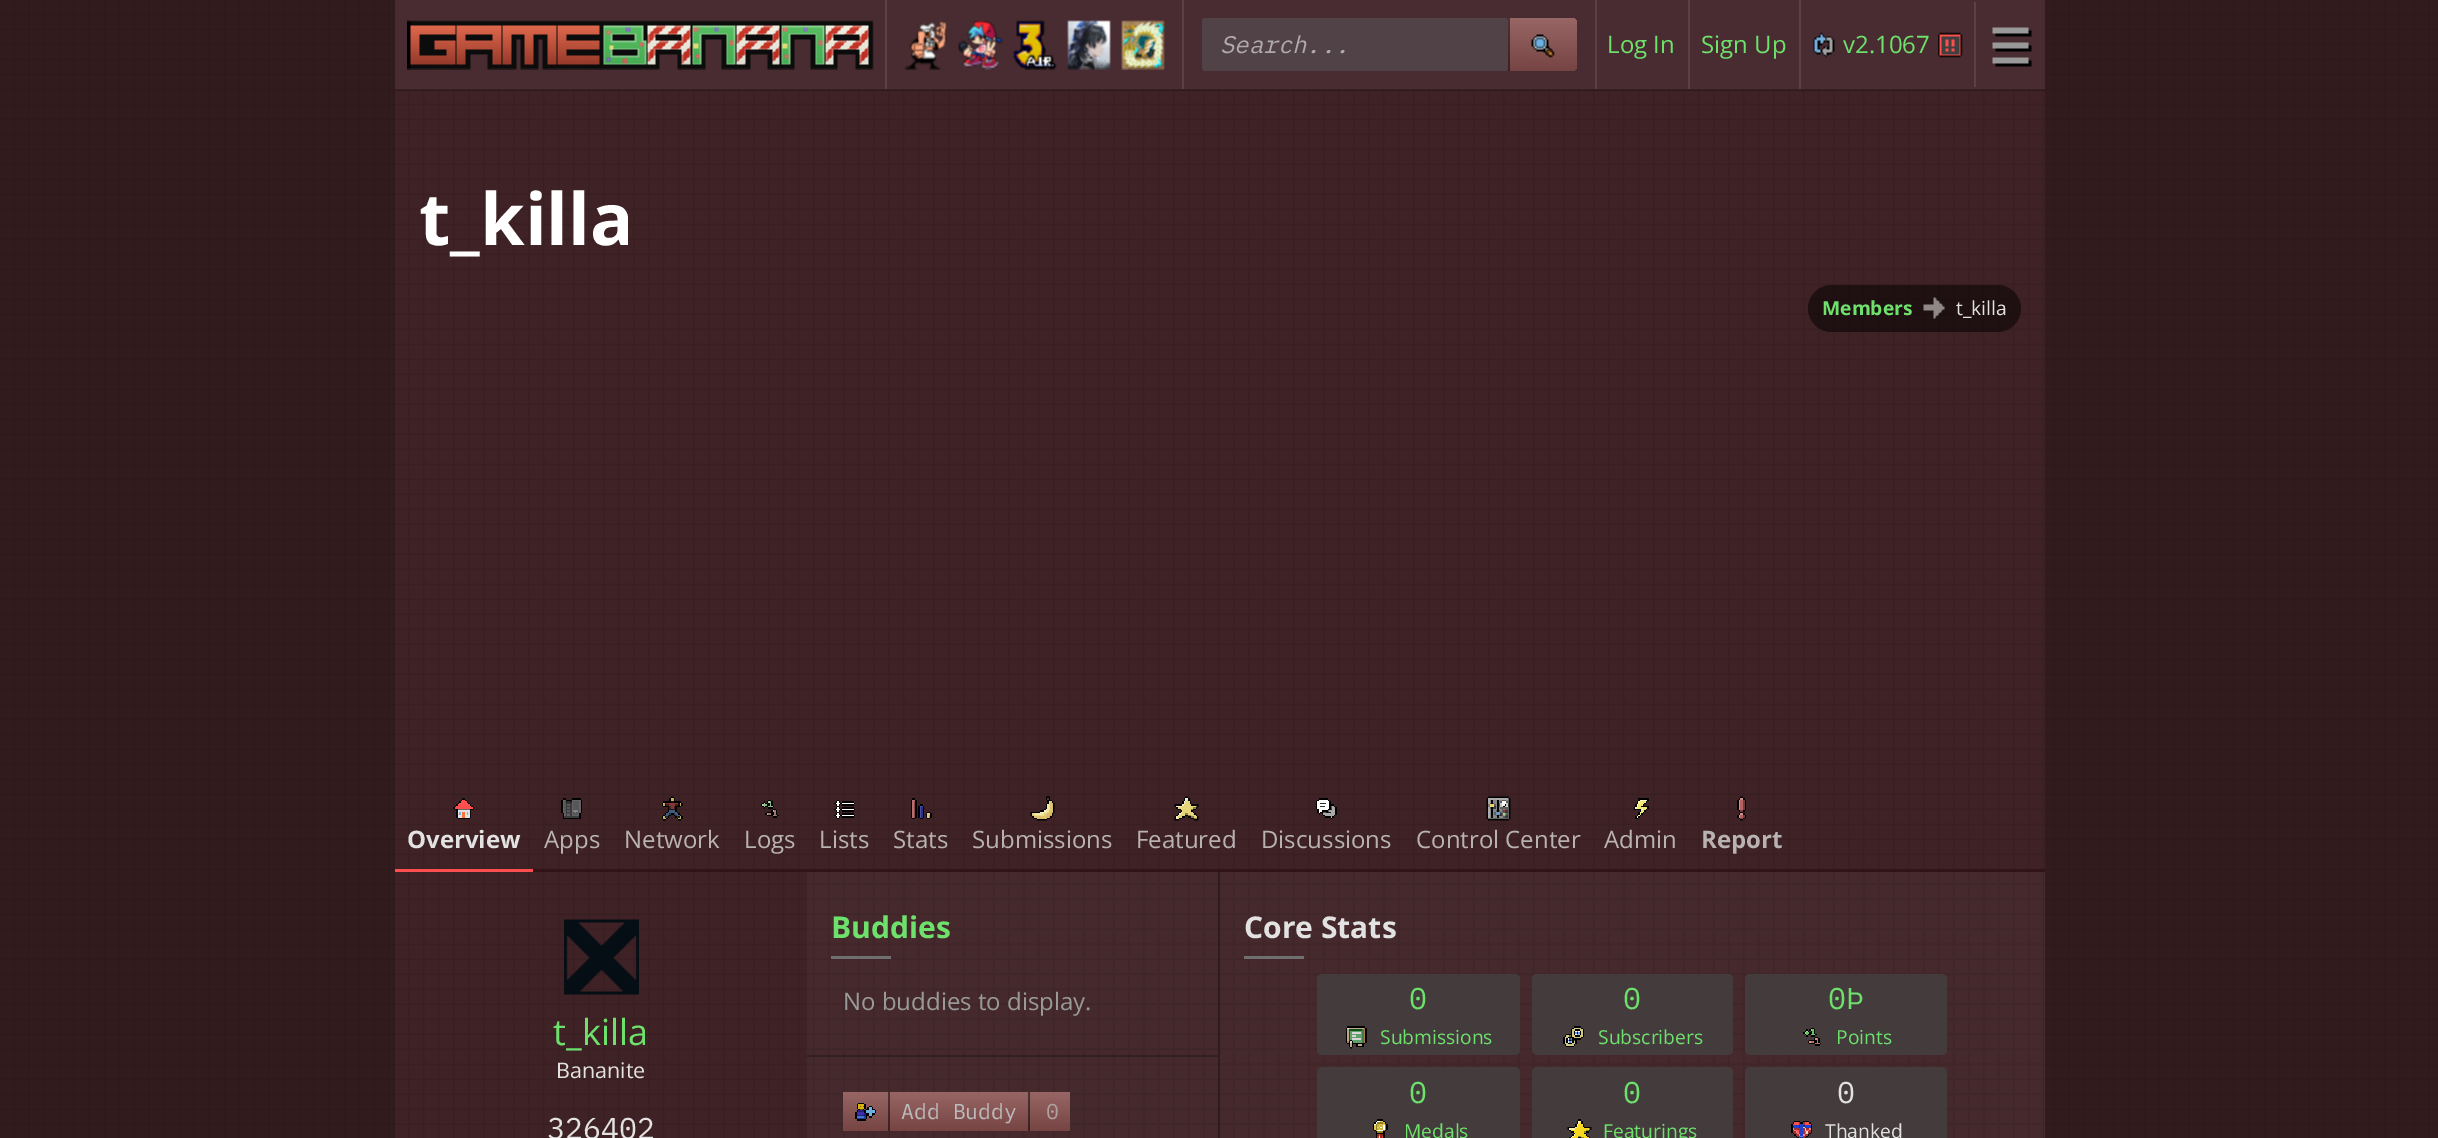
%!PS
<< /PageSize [2438 1138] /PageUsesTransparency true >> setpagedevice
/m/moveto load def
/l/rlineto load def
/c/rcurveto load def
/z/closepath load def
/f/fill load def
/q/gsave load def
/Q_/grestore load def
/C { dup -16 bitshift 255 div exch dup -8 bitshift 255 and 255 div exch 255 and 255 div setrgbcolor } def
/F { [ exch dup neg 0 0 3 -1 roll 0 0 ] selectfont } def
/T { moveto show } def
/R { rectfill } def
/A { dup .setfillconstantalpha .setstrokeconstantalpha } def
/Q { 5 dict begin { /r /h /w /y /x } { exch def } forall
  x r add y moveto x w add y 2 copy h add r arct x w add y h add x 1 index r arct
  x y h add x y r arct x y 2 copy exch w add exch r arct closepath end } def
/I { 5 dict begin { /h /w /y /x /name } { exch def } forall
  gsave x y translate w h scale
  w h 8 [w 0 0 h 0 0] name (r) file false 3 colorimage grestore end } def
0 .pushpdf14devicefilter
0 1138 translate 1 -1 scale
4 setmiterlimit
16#321B1D C
0 0 2438 1138 R
(1.rgb) 0 0 2438 1138 I
16#492C31 C
395 0 1650 90 R
16#3F2225 C
395 90 1650 1048 R
(12.rgb) 395 90 1649 1048 I
0.25 A
16#000000 C
395 89 1650 2 R
1 A
(2.rgb) 407 20 467 50 I
16#5B4146 C
885 0 2 89 R
(3.rgb) 904 21 43 49 I
(4.rgb) 958 20 45 50 I
(5.rgb) 1013 20 44 50 I
(6.rgb) 1067 20 44 50 I
(7.rgb) 1121 20 44 50 I
1182 0 2 89 R
16#504246 C
1202 18 306 53 3 Q f
/IBMPlexMono-Italic 24 F
16#B0AAAC C
(Search...) 1220 53 T
q 1508 18 m 63 0 l 3.5 0 6 2.5 6 6 c 0 41 l 0 3.5 -2.5 6 -6 6 c -63 0 l z clip newpath
<< /ShadingType 2 /ColorSpace /DeviceRGB /Coords [1543 18 1543 71] /Extend [true true] /Function << /FunctionType 2 /Domain [0 1] /C0 [.6 .4 .4] /C1 [.467 .267 .267] /N 1 >> >> shfill Q_
0.5 A
16#000000 C
1508 18 2 53 R
1 A
(8.rgb) 1531 34 24 24 I
16#5B4146 C
1595 0 2 89 R
/OpenSans-Regular 24 F
16#6EE16C C
(Log In) 1607 53 T
16#5B4146 C
1688 0 2 89 R
16#6EE16C C
(Sign Up) 1701 53 T
16#5B4146 C
1799 0 2 89 R
(9.rgb) 1813 32 22 26 I
16#6EE16C C
(v2.1067) 1843 53 T
(10.rgb) 1938 32 25 26 I
16#5B4146 C
1974 2 2 85 R
(11.rgb) 1992 27 40 40 I
/OpenSans-Bold 72 F
16#FFFFFF C
(t_killa) 419 245 T
0.5 A
16#000000 C
1808 285 213 47 23.5 Q f
/OpenSans-Bold 19.25 F
1 A
16#6EE16C C
(Members) 1822 315 T
(13.rgb) 1923 297 22 22 I
/OpenSans-Regular 19.25 F
16#E2E2E2 C
(t_killa) 1956 315 T
16#321317 C
533 869 1512 3 R
16#FF4E4E C
395 869 138 3 R
(14.rgb) 453 798 21 21 I
/OpenSans-Bold 24 F
16#E2E2E2 C
(Overview) 407 848 T
(15.rgb) 561 798 21 21 I
/OpenSans-Regular 24 F
16#B9B2B3 C
(Apps) 544 848 T
(16.rgb) 662 796 21 25 I
(Network) 624 848 T
(17.rgb) 761 800 18 18 I
(Logs) 744 848 T
(18.rgb) 834 800 21 19 I
(Lists) 819 848 T
(19.rgb) 911 798 21 21 I
(Stats) 893 848 T
(20.rgb) 1030 796 25 25 I
(Submissions) 972 848 T
(21.rgb) 1174 796 25 25 I
(Featured) 1136 848 T
(22.rgb) 1316 798 21 21 I
(Discussions) 1261 848 T
(23.rgb) 1486 796 25 25 I
(Control Center) 1416 848 T
(24.rgb) 1634 798 15 21 I
(Admin) 1604 848 T
(25.rgb) 1737 796 9 25 I
/OpenSans-Bold 24 F
(Report) 1701 848 T
(26.rgb) 564 919 75 76 I
/OpenSans-Regular 36 F
16#6EE16C C
(t_killa) 553 1045 T
/OpenSans-Regular 21.5 F
16#E2E2E2 C
(Bananite) 556 1078 T
/IBMPlexMono-Regular 30 F
(326402) 547 1139 T
0.03 A
16#FFFFFF C
807 872 413 266 R
0.25 A
16#000000 C
1218 872 2 266 R
807 1055 411 2 R
/OpenSans-Bold 30 F
1 A
16#6EE16C C
(Buddies) 831 938 T
16#707070 C
831 956 60 3 R
/OpenSans-Regular 24 F
16#999999 C
(No buddies to display.) 843 1010 T
q 843 1092 227 39 3 Q clip newpath
<< /ShadingType 2 /ColorSpace /DeviceRGB /Coords [956 1092 956 1131] /Extend [true true] /Function << /FunctionType 2 /Domain [0 1] /C0 [.6 .4 .4] /C1 [.467 .267 .267] /N 1 >> >> shfill Q_
(27.rgb) 855 1103 21 18 I
0.5 A
16#000000 C
1028 1092 2 39 R
888 1092 2 39 R
/IBMPlexMono-Regular 21.5 F
1 A
16#BBBBBB C
(Add Buddy) 901 1119 T
16#AEA2A2 C
(0) 1046 1119 T
0.03 A
16#FFFFFF C
1220 872 825 266 R
/OpenSans-Bold 30 F
1 A
16#E2E2E2 C
(Core Stats) 1244 938 T
16#707070 C
1244 956 60 3 R
16#443C3C C
1317 974 203 81 5 Q f
/IBMPlexMono-Regular 30 F
16#6EE16C C
(0) 1409 1009 T
(28.rgb) 1346 1026 21 23 I
/OpenSans-Regular 19.25 F
(Submissions) 1380 1044 T
16#443C3C C
1532 974 201 81 5 Q f
/IBMPlexMono-Regular 30 F
16#6EE16C C
(0) 1623 1009 T
(29.rgb) 1563 1026 21 21 I
/OpenSans-Regular 19.25 F
(Subscribers) 1598 1044 T
16#443C3C C
1745 974 202 81 5 Q f
/IBMPlexMono-Regular 30 F
16#6EE16C C
(0Þ) 1828 1009 T
(30.rgb) 1803 1028 18 18 I
/OpenSans-Regular 19.25 F
(Points) 1836 1044 T
16#443C3C C
1317 1067 203 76 5 Q f
/IBMPlexMono-Regular 30 F
16#6EE16C C
(0) 1409 1103 T
(31.rgb) 1373 1119 15 19 I
/OpenSans-Regular 19.25 F
(Medals) 1404 1138 T
16#443C3C C
1532 1067 201 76 5 Q f
/IBMPlexMono-Regular 30 F
16#6EE16C C
(0) 1623 1103 T
(32.rgb) 1567 1119 25 19 I
/OpenSans-Regular 19.25 F
(Featurings) 1603 1138 T
16#443C3C C
1745 1067 202 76 5 Q f
/IBMPlexMono-Regular 30 F
16#E2E2E2 C
(0) 1837 1103 T
(33.rgb) 1791 1121 21 17 I
/OpenSans-Regular 19.25 F
(Thanked) 1825 1138 T
.poppdf14devicefilter showpage
